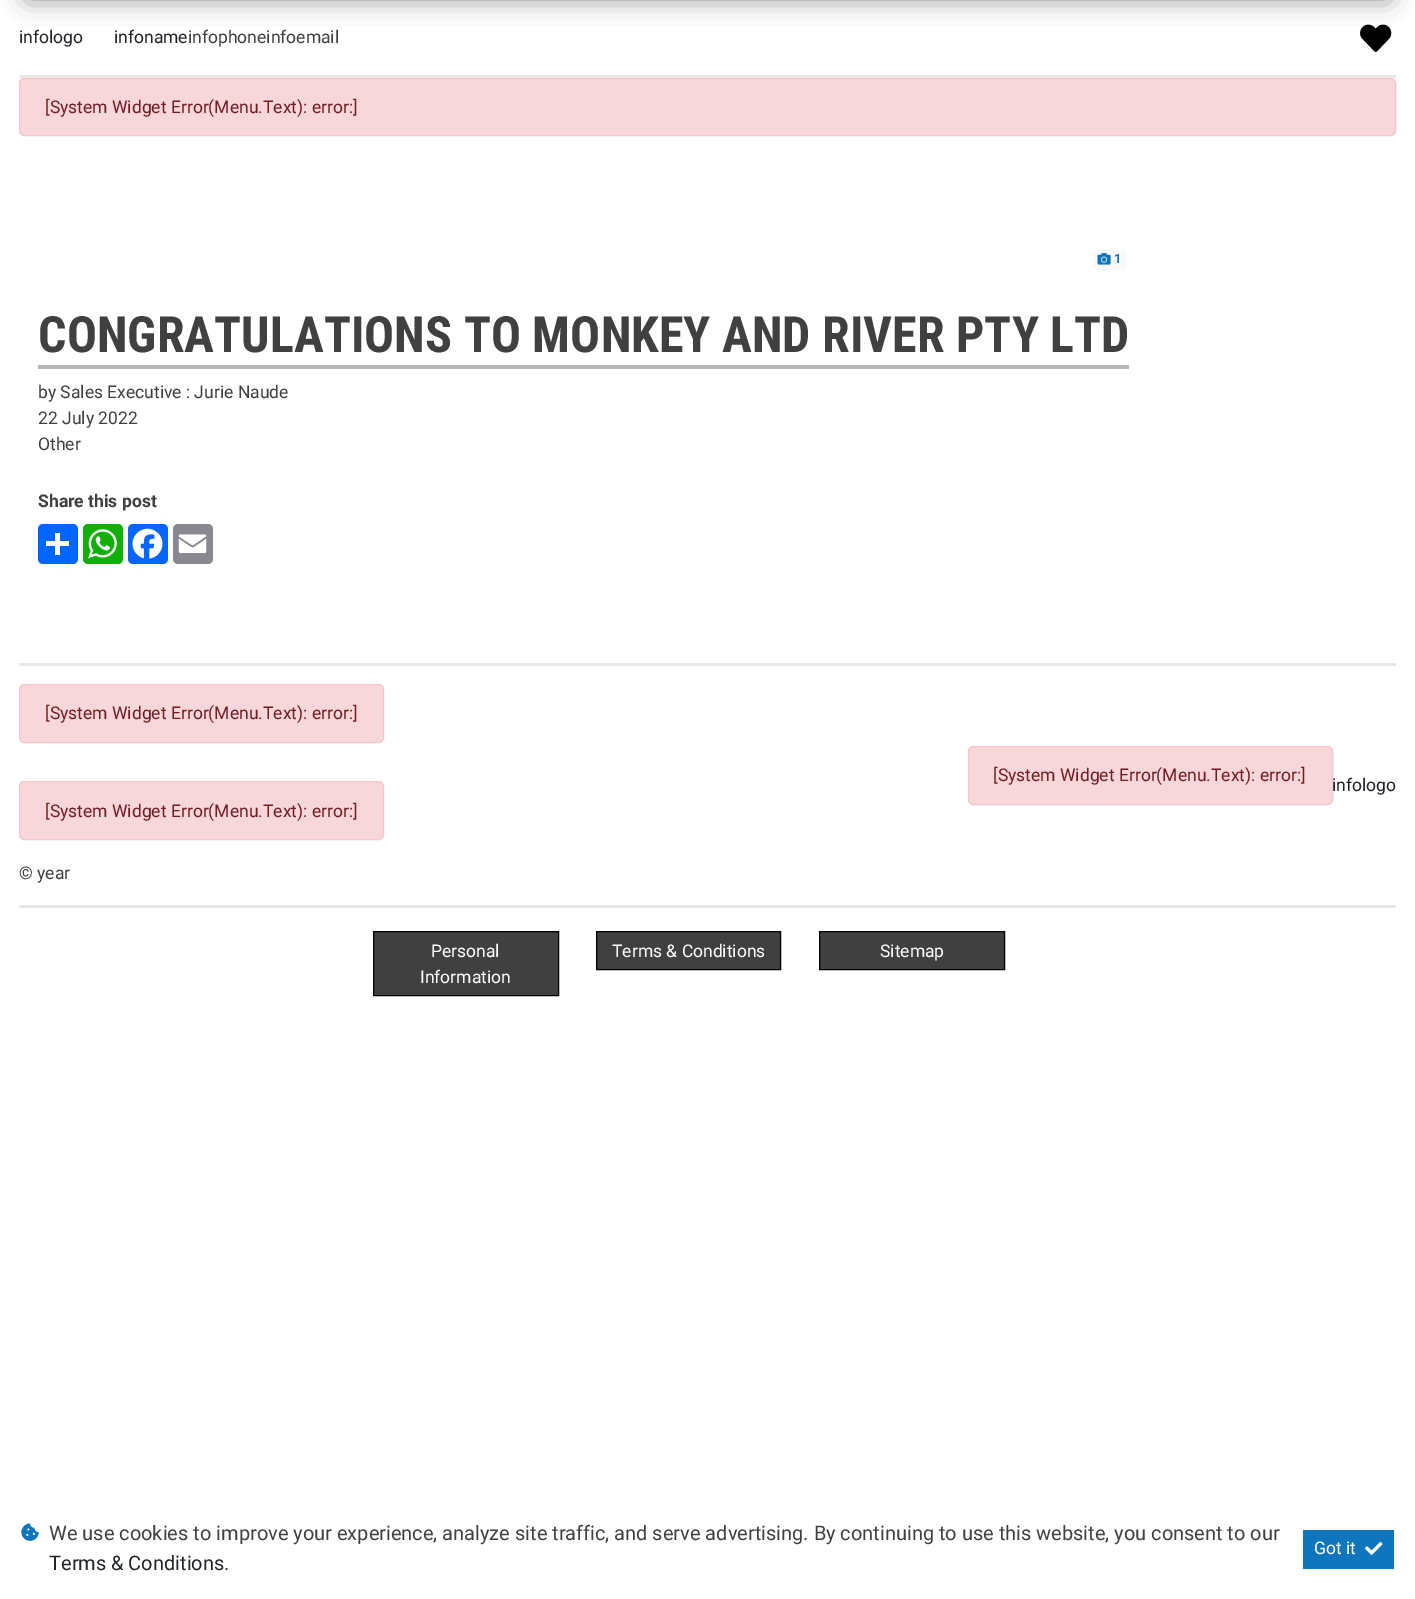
%!PS
<< /PageSize [1415 1599] /PageUsesTransparency true >> setpagedevice
/m/moveto load def
/l/rlineto load def
/z/closepath load def
/f/fill load def
/s/stroke load def
/q/gsave load def
/Q_/grestore load def
/C { dup -16 bitshift 255 div exch dup -8 bitshift 255 and 255 div exch 255 and 255 div setrgbcolor } def
/F { [ exch dup neg 0 0 3 -1 roll 0 0 ] selectfont } def
/T { moveto show } def
/R { rectfill } def
/A { dup .setfillconstantalpha .setstrokeconstantalpha } def
/Q { 5 dict begin { /r /h /w /y /x } { exch def } forall
  x r add y moveto x w add y 2 copy h add r arct x w add y h add x 1 index r arct
  x y h add x y r arct x y 2 copy exch w add exch r arct closepath end } def
/S { 12 dict begin { /a /b /q /h /w /y /x } { exch def } forall gsave /was 0 def
  9 -2 -9 { dup b mul 4 div /e exch def 1 sub .425 mul 2.718 exch exp 1 add a .99 .min exch div /now exch def
    1 1 now sub 1 was sub div sub A /was now def
    w h .min e 2 mul add 0 gt { x e sub y e sub w e 2 mul add h e 2 mul add
      q e add b .6 mul add w h .min 2 div e add .min 0 .max Q fill } if } for grestore end } def
/I { 5 dict begin { /h /w /y /x /name } { exch def } forall
  gsave x y translate w h scale
  w h 8 [w 0 0 h 0 0] name (r) file false 3 colorimage grestore end } def
0 .pushpdf14devicefilter
0 1599 translate 1 -1 scale
4 setmiterlimit
16#FFFFFF C
0 0 1415 1599 R
(1.rgb) 1360 24 32 28 I
16#000000 C
28 -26 1360 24 0 12.5 .5 S
16#E7E7E7 C
19 75 1377 3 R
/Roboto-Regular 17.5 F
16#212529 C
(infologo) 19 43 T
(infoname) 114 43 T
16#404041 C
(infophoneinfoemail) 188 43 T
16#F8D7DA C
19.5 78.5 1376 57 4.5 Q q f Q_
16#F5C6CB C
s
16#721C24 C
([System Widget Error\(Menu.Text\): error:]) 45 113 T
16#F8F9FA C
1093 249 33 21 5 Q f
(2.rgb) 1097 253 14 12 I
/Roboto-Bold 13 F
16#0F75BC C
(1) 1114 263 T
16#B5B6B6 C
38 365 1091 4 R
/RobotoCondensed-Bold 50 F
16#404041 C
(CONGRATULATIONS TO MONKEY AND RIVER PTY LTD) 38 352 T
/Roboto-Regular 17.5 F
(by Sales Executive : Jurie Naude) 38 398 T
(22 July 2022) 38 424 T
(Other) 38 450 T
/Roboto-Bold 17.5 F
(Share this post) 38 507 T
16#0166FF C
38 524 40 40 5 Q f
16#FFFFFF C
55 533 5 22 R
46 541 23 5 R
16#12AF0A C
83 524 40 40 5 Q f
(3.rgb) 88 529 29 30 I
16#0866FF C
128 524 40 40 5 Q f
(4.rgb) 132 528 31 31 I
16#888990 C
173 524 40 40 5 Q f
(5.rgb) 178 534 29 19 I
16#E7E7E7 C
19 663 1377 3 R
19 905 1377 3 R
16#F8D7DA C
19.5 684.5 364 58 4.5 Q q f Q_
16#F5C6CB C
s
/Roboto-Regular 17.5 F
16#721C24 C
([System Widget Error\(Menu.Text\): error:]) 45 719 T
16#F8D7DA C
19.5 781.5 364 58 4.5 Q q f Q_
16#F5C6CB C
s
16#721C24 C
([System Widget Error\(Menu.Text\): error:]) 45 817 T
16#404041 C
(© year) 19 879 T
16#F8D7DA C
968.5 746.5 364 58 4.5 Q q f Q_
16#F5C6CB C
s
16#721C24 C
([System Widget Error\(Menu.Text\): error:]) 993 781 T
16#212529 C
(infologo) 1332 791 T
16#404041 C
373.5 931.5 m 185 0 l 0 64 l -185 0 l z q f Q_
16#000000 C
s
16#FFFFFF C
(Personal) 431 957 T
(Information) 420 983 T
16#404041 C
596.5 931.5 m 184 0 l 0 38 l -184 0 l z q f Q_
16#000000 C
s
16#FFFFFF C
(Terms & Conditions) 612 957 T
16#404041 C
819.5 931.5 m 185 0 l 0 38 l -185 0 l z q f Q_
16#000000 C
s
16#FFFFFF C
(Sitemap) 880 957 T
(6.rgb) 21 1523 18 18 I
/Roboto-Regular 20 F
16#404041 C
(We use cookies to improve your experience, analyze site traffic, and serve advertising. By continuing to use this website, you consent to our) 49 1540 T
16#212529 C
(Terms & Conditions) 49 1570 T
16#404041 C
(.) 224 1570 T
16#0F75BC C
1303 1530 91 39 R
/Roboto-Regular 17.5 F
16#FFFFFF C
(Got it) 1314 1554 T
(7.rgb) 1365 1541 18 14 I
.poppdf14devicefilter showpage
